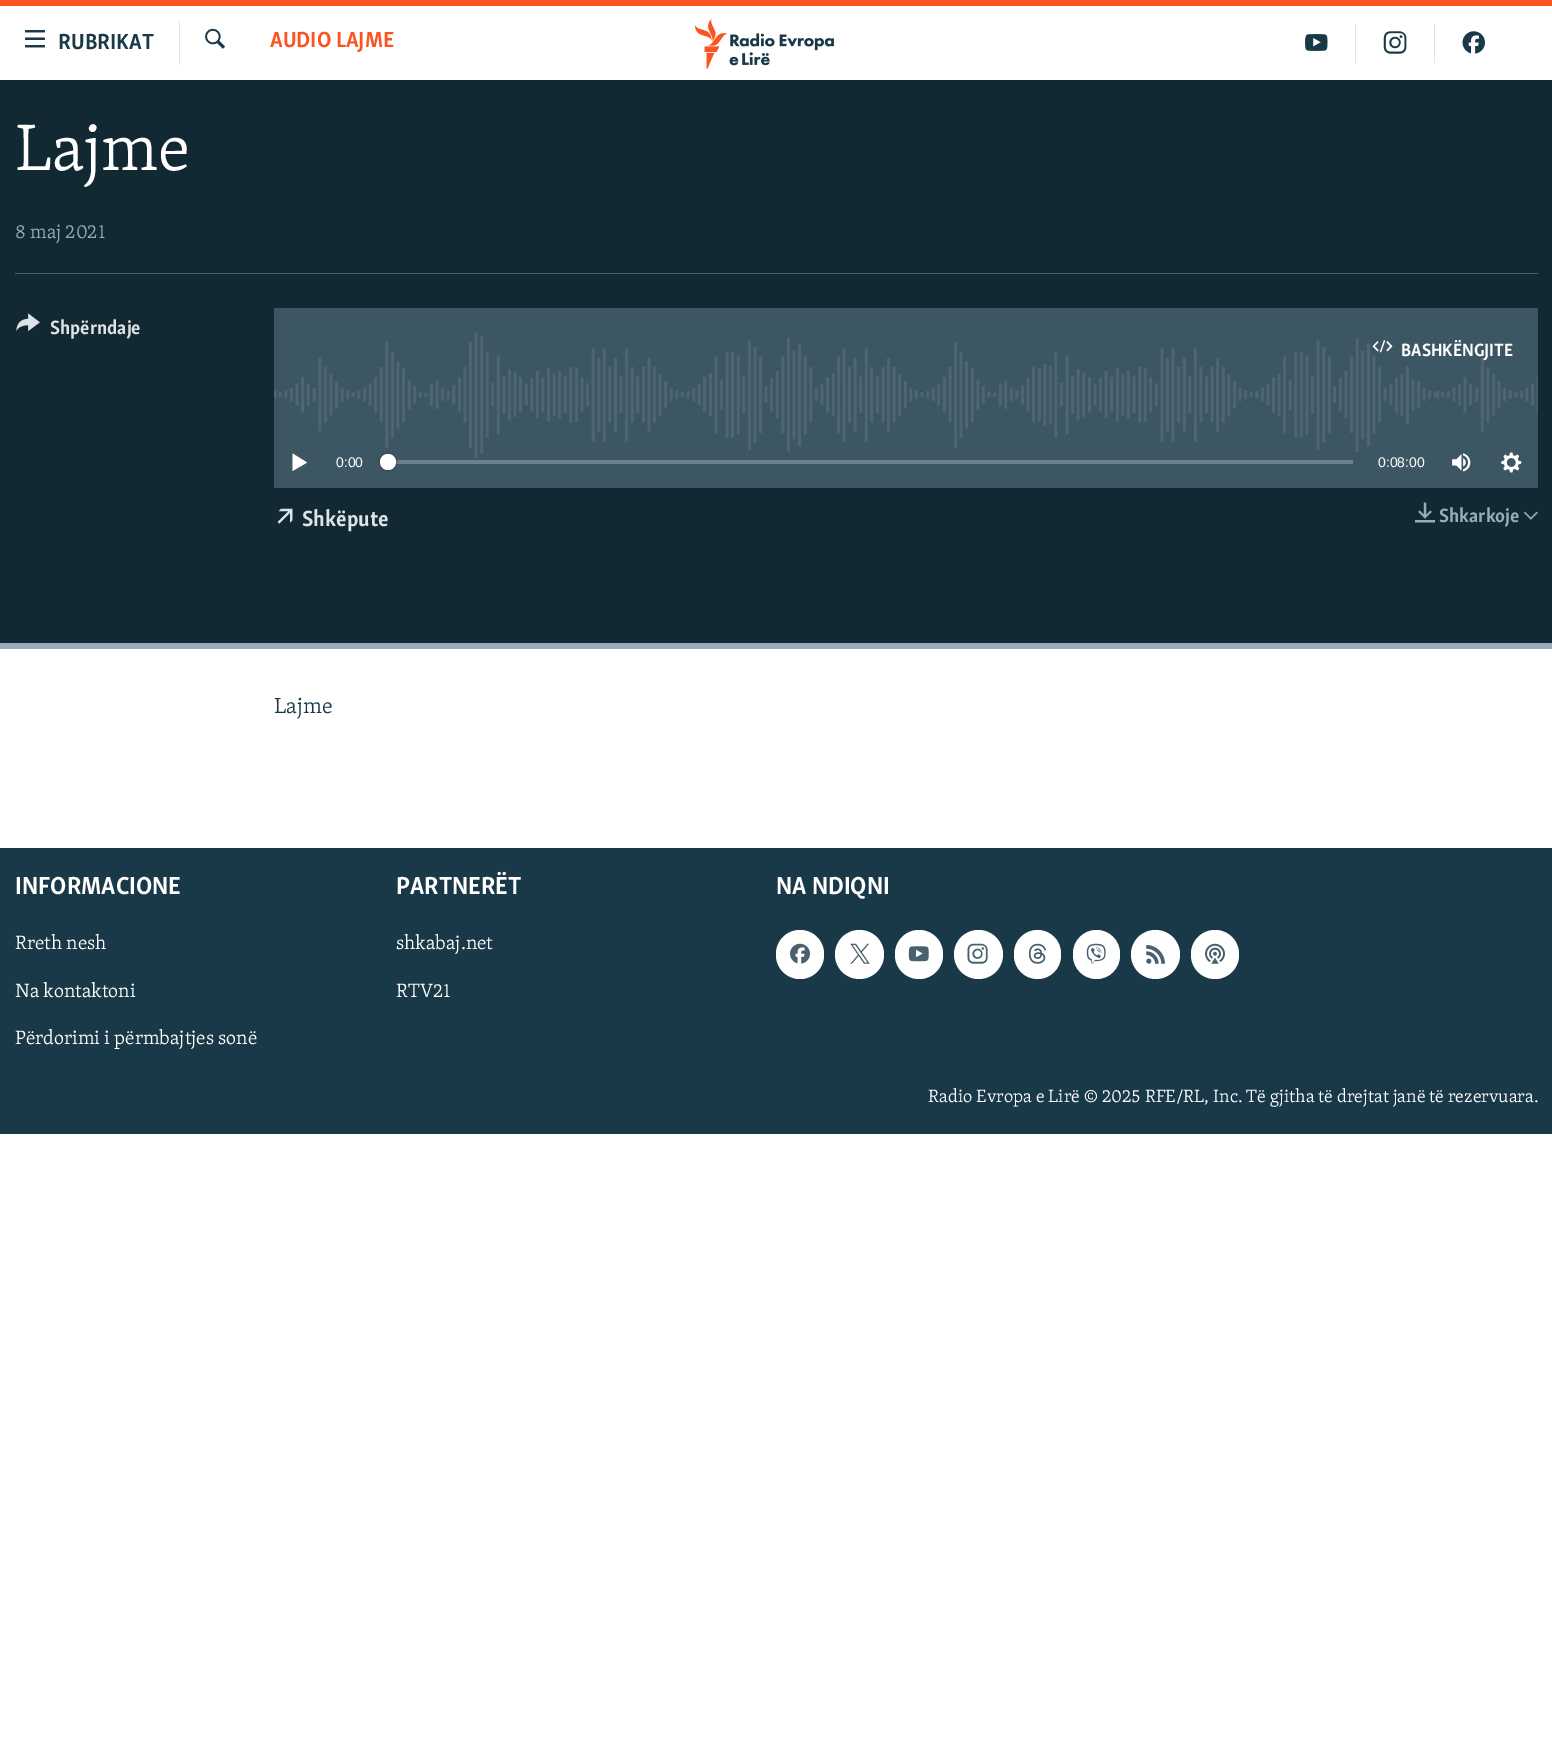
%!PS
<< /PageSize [1552 1748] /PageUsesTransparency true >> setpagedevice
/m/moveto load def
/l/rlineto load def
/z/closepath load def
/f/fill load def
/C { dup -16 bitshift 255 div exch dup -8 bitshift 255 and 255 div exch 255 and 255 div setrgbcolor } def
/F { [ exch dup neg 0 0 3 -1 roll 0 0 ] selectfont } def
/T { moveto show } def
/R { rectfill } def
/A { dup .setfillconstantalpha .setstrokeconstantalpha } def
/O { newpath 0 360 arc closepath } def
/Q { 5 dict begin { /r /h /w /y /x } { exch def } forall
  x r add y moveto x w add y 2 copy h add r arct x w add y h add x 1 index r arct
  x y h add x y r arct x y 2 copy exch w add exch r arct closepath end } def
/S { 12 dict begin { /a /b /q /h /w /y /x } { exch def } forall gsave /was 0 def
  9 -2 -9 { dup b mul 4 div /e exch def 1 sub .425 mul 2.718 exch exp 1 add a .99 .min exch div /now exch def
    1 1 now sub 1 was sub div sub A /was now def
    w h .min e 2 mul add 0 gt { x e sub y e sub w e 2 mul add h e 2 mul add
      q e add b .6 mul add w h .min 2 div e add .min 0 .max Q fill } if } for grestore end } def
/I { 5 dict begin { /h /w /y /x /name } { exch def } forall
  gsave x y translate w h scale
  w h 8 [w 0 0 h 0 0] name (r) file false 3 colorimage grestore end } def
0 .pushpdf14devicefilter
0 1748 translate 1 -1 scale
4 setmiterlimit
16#FFFFFF C
0 0 1552 1748 R
16#FA5420 C
0 0 1552 6 R
(1.rgb) 25 30 20 18 I
/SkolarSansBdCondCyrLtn-Bold 22.5 F
16#1A3948 C
(RUBRIKAT) 58 49 T
16#DCE4E8 C
179 21 1 44 R
(2.rgb) 205 28 20 21 I
16#FA5420 C
(AUDIO LAJME) 270 47 T
(3.rgb) 695 19 139 50 I
16#DCE4E8 C
1355 24 1 39 R
(4.rgb) 1305 34 23 17 I
1434 24 1 39 R
(5.rgb) 1383 31 24 23 I
(6.rgb) 1462 31 23 23 I
16#122832 C
0 80 1552 563 R
16#95ADB9 C
0 643 1552 6 R
/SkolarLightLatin-Light 67.5 F
16#FFFFFF C
(Lajme) 15 170 T
/SkolarLightLatin-Light 19.75 F
16#95ADB9 C
(8 maj 2021) 15 238 T
16#48616D C
15 273 1523 1 R
(7.rgb) 16 313 24 18 I
/SkolarSansBdCondCyrLtn-Bold 19.75 F
16#DCE4E8 C
(Shpërndaje) 50 334 T
16#3C5763 C
274 308 1264 180 R
(8.rgb) 273 332 1265 126 I
(9.rgb) 1372 340 21 13 I
/SkolarSansBdCondCyrLtn-Bold 18.3 F
16#FFFFFF C
(BASHKËNGJITE) 1401 356 T
292.5 471 m 14.5 -8.5 l -14.5 -9 l z f
/LiberationSans-Regular 14 F
(0:00) 336 467 T
16#6D818A C
388 460 965 4 R
16#414144 C
380 454 16 16 8 2 1 S
16#FFFFFF C
388 462 8 O f
(0:08:00) 1378 467 T
(10.rgb) 1452 453 19 19 I
(11.rgb) 1501 452 21 21 I
(12.rgb) 277 508 16 16 I
/SkolarSansBdCondCyrLtn-Bold 22.5 F
16#DCE4E8 C
(Shkëpute) 302 526 T
(13.rgb) 1415 502 20 21 I
/SkolarSansBdCondCyrLtn-Bold 19.75 F
16#95ADB9 C
(Shkarkoje) 1439 522 T
(14.rgb) 1523 511 15 9 I
/SkolarLightLatin-Light 22.5 F
16#1A3948 C
(Lajme) 274 713 T
0 848 1552 286 R
/SkolarSansBdCondCyrLtn-Bold 25.25 F
16#FFFFFF C
(INFORMACIONE) 15 894 T
/SkolarLightLatin-Light 19.75 F
(Rreth nesh) 15 949 T
(Na kontaktoni) 15 997 T
(Përdorimi i përmbajtjes sonë) 15 1044 T
/SkolarSansBdCondCyrLtn-Bold 25.25 F
(PARTNERËT) 396 894 T
/SkolarLightLatin-Light 19.75 F
(shkabaj.net) 396 949 T
(RTV21) 396 997 T
/SkolarSansBdCondCyrLtn-Bold 25.25 F
(NA NDIQNI) 776 894 T
776 930 48 49 24 Q f
(15.rgb) 790 943 20 21 I
859.5 954.5 24.5 O f
(16.rgb) 850 943 20 21 I
895 930 48 49 24 Q f
(17.rgb) 908 946 21 16 I
978.5 954.5 24.5 O f
(18.rgb) 967 943 21 21 I
1014 930 47 49 23.5 Q f
(19.rgb) 1028 943 18 21 I
1073 930 47 49 23.5 Q f
(20.rgb) 1086 943 20 21 I
1155.5 954.5 24.5 O f
(21.rgb) 1146 945 19 19 I
1191 930 48 49 24 Q f
(22.rgb) 1205 943 20 21 I
/SkolarLightLatin-Light 18.3 F
(Radio Evropa e Lirë © 2025 RFE/RL, Inc. Të gjitha të drejtat janë të rezervuara.) 928 1102 T
.poppdf14devicefilter showpage
